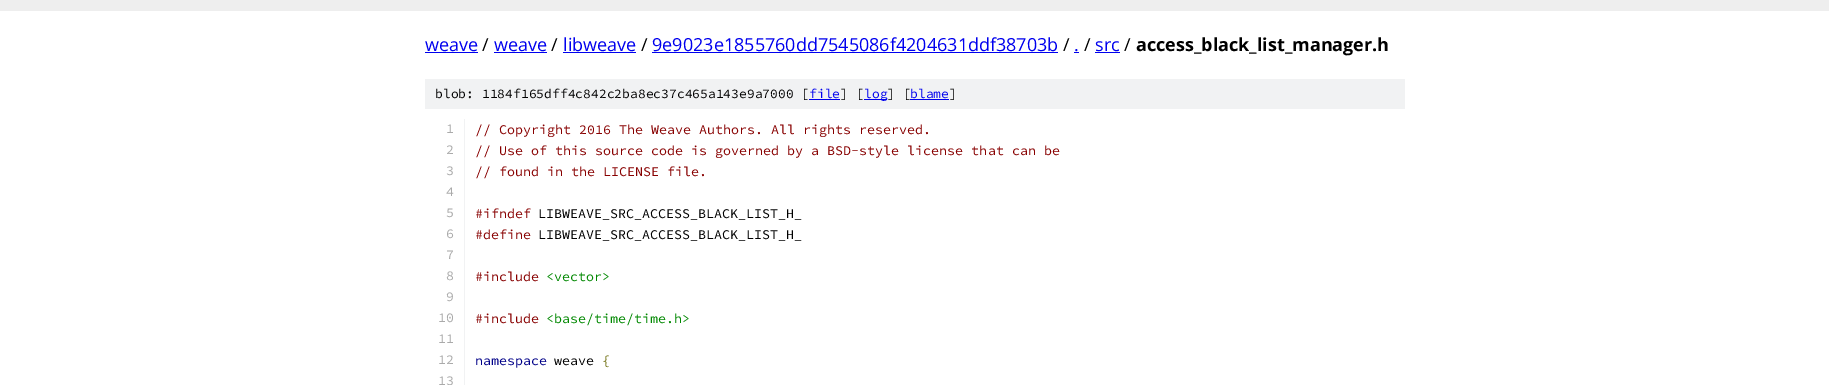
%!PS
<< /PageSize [1829 385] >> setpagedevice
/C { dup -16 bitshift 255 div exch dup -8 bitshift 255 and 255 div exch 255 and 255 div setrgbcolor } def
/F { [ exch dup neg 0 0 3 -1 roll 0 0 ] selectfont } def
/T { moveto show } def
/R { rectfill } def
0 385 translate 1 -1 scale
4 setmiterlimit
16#FFFFFF C
0 0 1829 385 R
16#EEEEEE C
0 0 1829 11 R
/OpenSans-Regular 18 F
16#0000EE C
(weave) 425 51 T
425 52 53 1 R
16#000000 C
(/) 482 51 T
16#0000EE C
(weave) 494 51 T
494 52 53 1 R
16#000000 C
(/) 551 51 T
16#0000EE C
(libweave) 563 51 T
563 52 73 1 R
16#000000 C
(/) 641 51 T
16#0000EE C
(9e9023e1855760dd7545086f4204631ddf38703b) 652 51 T
652 52 406 1 R
16#000000 C
(/) 1063 51 T
16#0000EE C
(.) 1074 51 T
1074 52 5 1 R
16#000000 C
(/) 1084 51 T
16#0000EE C
(src) 1095 51 T
1095 52 25 1 R
16#000000 C
(/) 1124 51 T
/OpenSans-Bold 18 F
(access_black_list_manager.h) 1136 51 T
16#F1F2F3 C
425 79 980 30 R
/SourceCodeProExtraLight-ExtraLight 13 F
16#000000 C
(blob: 1184f165dff4c842c2ba8ec37c465a143e9a7000 [) 435 98 T
16#0000EE C
(file) 809 98 T
809 99 31 1 R
16#000000 C
(] [) 840 98 T
16#0000EE C
864 99 23 1 R
(log) 864 98 T
16#000000 C
(] [) 887 98 T
16#0000EE C
(blame) 910 98 T
910 99 39 1 R
16#000000 C
(]) 949 98 T
16#F1F2F3 C
464 119 1 266 R
/SourceCodeProExtraLight-ExtraLight 13.35 F
16#AAAAAA C
(1) 446 133 T
16#880000 C
(// Copyright 2016 The Weave Authors. All rights reserved.) 475 134 T
16#AAAAAA C
(2) 446 154 T
16#880000 C
(// Use of this source code is governed by a BSD-style license that can be) 475 155 T
16#AAAAAA C
(3) 446 175 T
16#880000 C
(// found in the LICENSE file.) 475 176 T
16#AAAAAA C
(4) 446 196 T
(5) 446 217 T
16#880000 C
(#ifndef) 475 218 T
16#000000 C
(LIBWEAVE_SRC_ACCESS_BLACK_LIST_H_) 538 218 T
16#AAAAAA C
(6) 446 238 T
16#880000 C
(#define) 475 239 T
16#000000 C
(LIBWEAVE_SRC_ACCESS_BLACK_LIST_H_) 538 239 T
16#AAAAAA C
(7) 446 259 T
(8) 446 280 T
16#880000 C
(#include) 475 281 T
16#008800 C
(<vector>) 546 281 T
16#AAAAAA C
(9) 446 301 T
(10) 438 322 T
16#880000 C
(#include) 475 323 T
16#008800 C
(<base/time/time.h>) 546 323 T
16#AAAAAA C
(11) 438 343 T
(12) 438 364 T
16#000088 C
(namespace) 475 365 T
16#000000 C
(weave) 554 365 T
16#666600 C
({) 602 365 T
16#AAAAAA C
(13) 438 385 T
showpage
